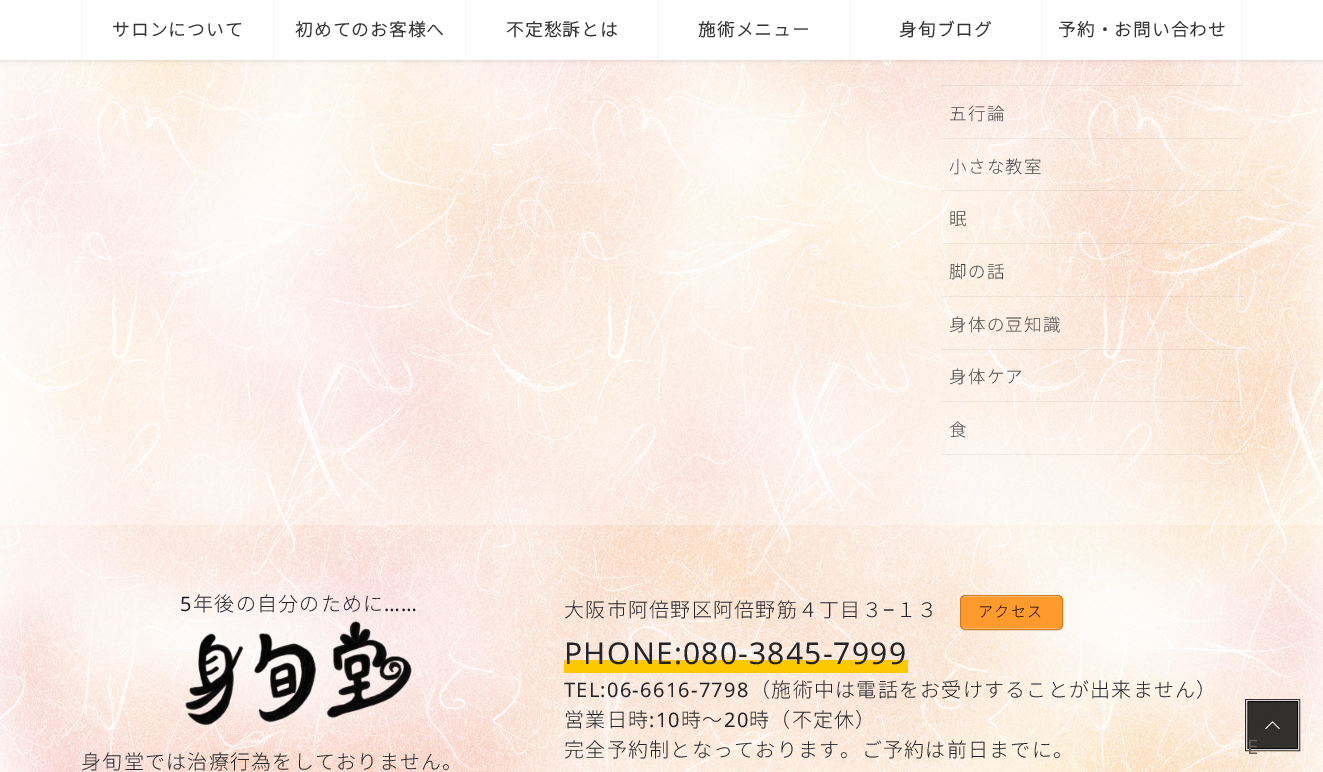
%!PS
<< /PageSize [1323 772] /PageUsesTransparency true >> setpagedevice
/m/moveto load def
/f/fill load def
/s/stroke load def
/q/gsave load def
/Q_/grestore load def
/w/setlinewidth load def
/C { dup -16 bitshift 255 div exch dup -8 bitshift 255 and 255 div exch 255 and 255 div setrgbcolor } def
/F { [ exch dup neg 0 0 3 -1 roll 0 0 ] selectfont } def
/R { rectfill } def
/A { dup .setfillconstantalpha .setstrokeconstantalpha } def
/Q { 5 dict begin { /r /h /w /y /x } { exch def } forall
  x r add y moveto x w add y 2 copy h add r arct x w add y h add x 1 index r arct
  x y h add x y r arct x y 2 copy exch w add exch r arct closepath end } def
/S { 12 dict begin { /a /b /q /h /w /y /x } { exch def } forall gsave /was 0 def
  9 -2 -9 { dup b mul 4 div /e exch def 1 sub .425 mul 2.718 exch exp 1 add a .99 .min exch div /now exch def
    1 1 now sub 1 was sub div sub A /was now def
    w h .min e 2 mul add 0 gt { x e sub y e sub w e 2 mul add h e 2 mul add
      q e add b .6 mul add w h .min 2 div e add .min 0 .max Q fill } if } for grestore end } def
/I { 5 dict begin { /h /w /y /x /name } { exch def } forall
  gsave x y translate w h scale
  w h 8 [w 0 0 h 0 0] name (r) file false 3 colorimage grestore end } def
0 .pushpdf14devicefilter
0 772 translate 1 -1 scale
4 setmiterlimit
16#FFFFFF C
0 0 1323 772 R
(1.rgb) 0 60 1323 712 I
0.3 A
0 60 1323 465 R
1 A
16#000000 C
0 1 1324 60 0 2 .1 S
16#FFFFFF C
0 0 1323 60 R
16#F5F5F5 C
81 0 1 60 R
/NotoSansJP-Bold 17.5 F
16#333333 C
112 36 m 1.25 0 (サロンについて) ashow
16#F5F5F5 C
273 0 1 60 R
16#333333 C
295 36 m 1.25 0 (初めてのお客様へ) ashow
16#F5F5F5 C
465 0 1 60 R
16#333333 C
506 36 m 1.25 0 (不定愁訴とは) ashow
16#F5F5F5 C
658 0 1 60 R
16#333333 C
698 36 m 1.25 0 (施術メニュー) ashow
16#F5F5F5 C
850 0 1 60 R
16#333333 C
899 36 m 1.25 0 (身旬ブログ) ashow
16#F5F5F5 C
1241 0 1 60 R
1041 0 1 60 R
16#333333 C
1058 36 m 1.25 0 (予約・お問い合わせ) ashow
0.05 A
16#000000 C
941 85 303 1 R
941 138 303 1 R
/NotoSansJP-Thin 17.5 F
1 A
16#464646 C
949 120 m 1.25 0 (五行論) ashow
0.05 A
16#000000 C
941 190 303 1 R
1 A
16#464646 C
949 173 m 1.25 0 (小さな教室) ashow
0.05 A
16#000000 C
941 243 303 1 R
1 A
16#464646 C
949 225 m 1.25 0 (眠) ashow
0.05 A
16#000000 C
941 296 303 1 R
1 A
16#464646 C
949 278 m 1.25 0 (脚の話) ashow
0.05 A
16#000000 C
941 349 303 1 R
1 A
16#464646 C
949 331 m 1.25 0 (身体の豆知識) ashow
0.05 A
16#000000 C
941 401 303 1 R
1 A
16#464646 C
949 383 m 1.25 0 (身体ケア) ashow
0.05 A
16#000000 C
941 454 303 1 R
1 A
16#464646 C
949 436 m 1.25 0 (食) ashow
/NotoSans-Regular 20 F
16#212529 C
180 611 m 1.25 0 (5) ashow
/NotoSansJP-Thin 20 F
193 611 m 1.25 0 (年後の自分のために) ashow
/NotoSans-Regular 20 F
384 611 m 1.25 0 (……) ashow
(2.rgb) 185 621 227 105 I
/NotoSansJP-Thin 20 F
81 769 m 1.25 0 (身旬堂では治療行為をしておりません。) ashow
564 617 m 1.25 0 (大阪市阿倍野区阿倍野筋４丁目３) ashow
/NotoSans-Regular 20 F
883 617 m 1.25 0 (−) ashow
/NotoSansJP-Thin 20 F
896 617 m 1.25 0 (１３) ashow
16#FF9A2D C
960.5 595.5 102 34 4.5 Q q f Q_
16#CC7C24 C
s
16#FFB96C C
964 596 95 1 R
964 628 95 1 R
/NotoSansJP-Thin 15 F
16#000000 C
978 617 m 1.25 0 (アクセス) ashow
16#FCC800 C
564 660 344 13 R
/NotoSans-Regular 30 F
16#212529 C
564 664 m 1.25 0 (PHONE:080-3845-7999) ashow
/NotoSans-Regular 20 F
564 697 m 1.25 0 (TEL:06-6616-7798) ashow
/NotoSansJP-Thin 20 F
750 697 m 1.25 0 (（施術中は電話をお受けすることが出来ません）) ashow
564 727 m 1.25 0 (営業日時) ashow
/NotoSans-Regular 20 F
649 727 m 1.25 0 (:10) ashow
/NotoSansJP-Thin 20 F
681 727 m 1.25 0 (時～) ashow
/NotoSans-Regular 20 F
724 727 m 1.25 0 (20) ashow
/NotoSansJP-Thin 20 F
749 727 m 1.25 0 (時（不定休）) ashow
564 757 m 1.25 0 (完全予約制となっております。ご予約は前日までに。) ashow
0.8 A
16#000000 C
3 w
1246.5 700.5 52 49 rectstroke
16#FFFFFF C
1 w
1246.5 700.5 52 49 rectstroke
16#000000 C
1248 701 50 48 R
1 A
(3.rgb) 1265 721 15 9 I
/NotoSans-Regular 20 F
16#655F5A C
1247 754 m 1.25 0 (E) ashow
.poppdf14devicefilter showpage
